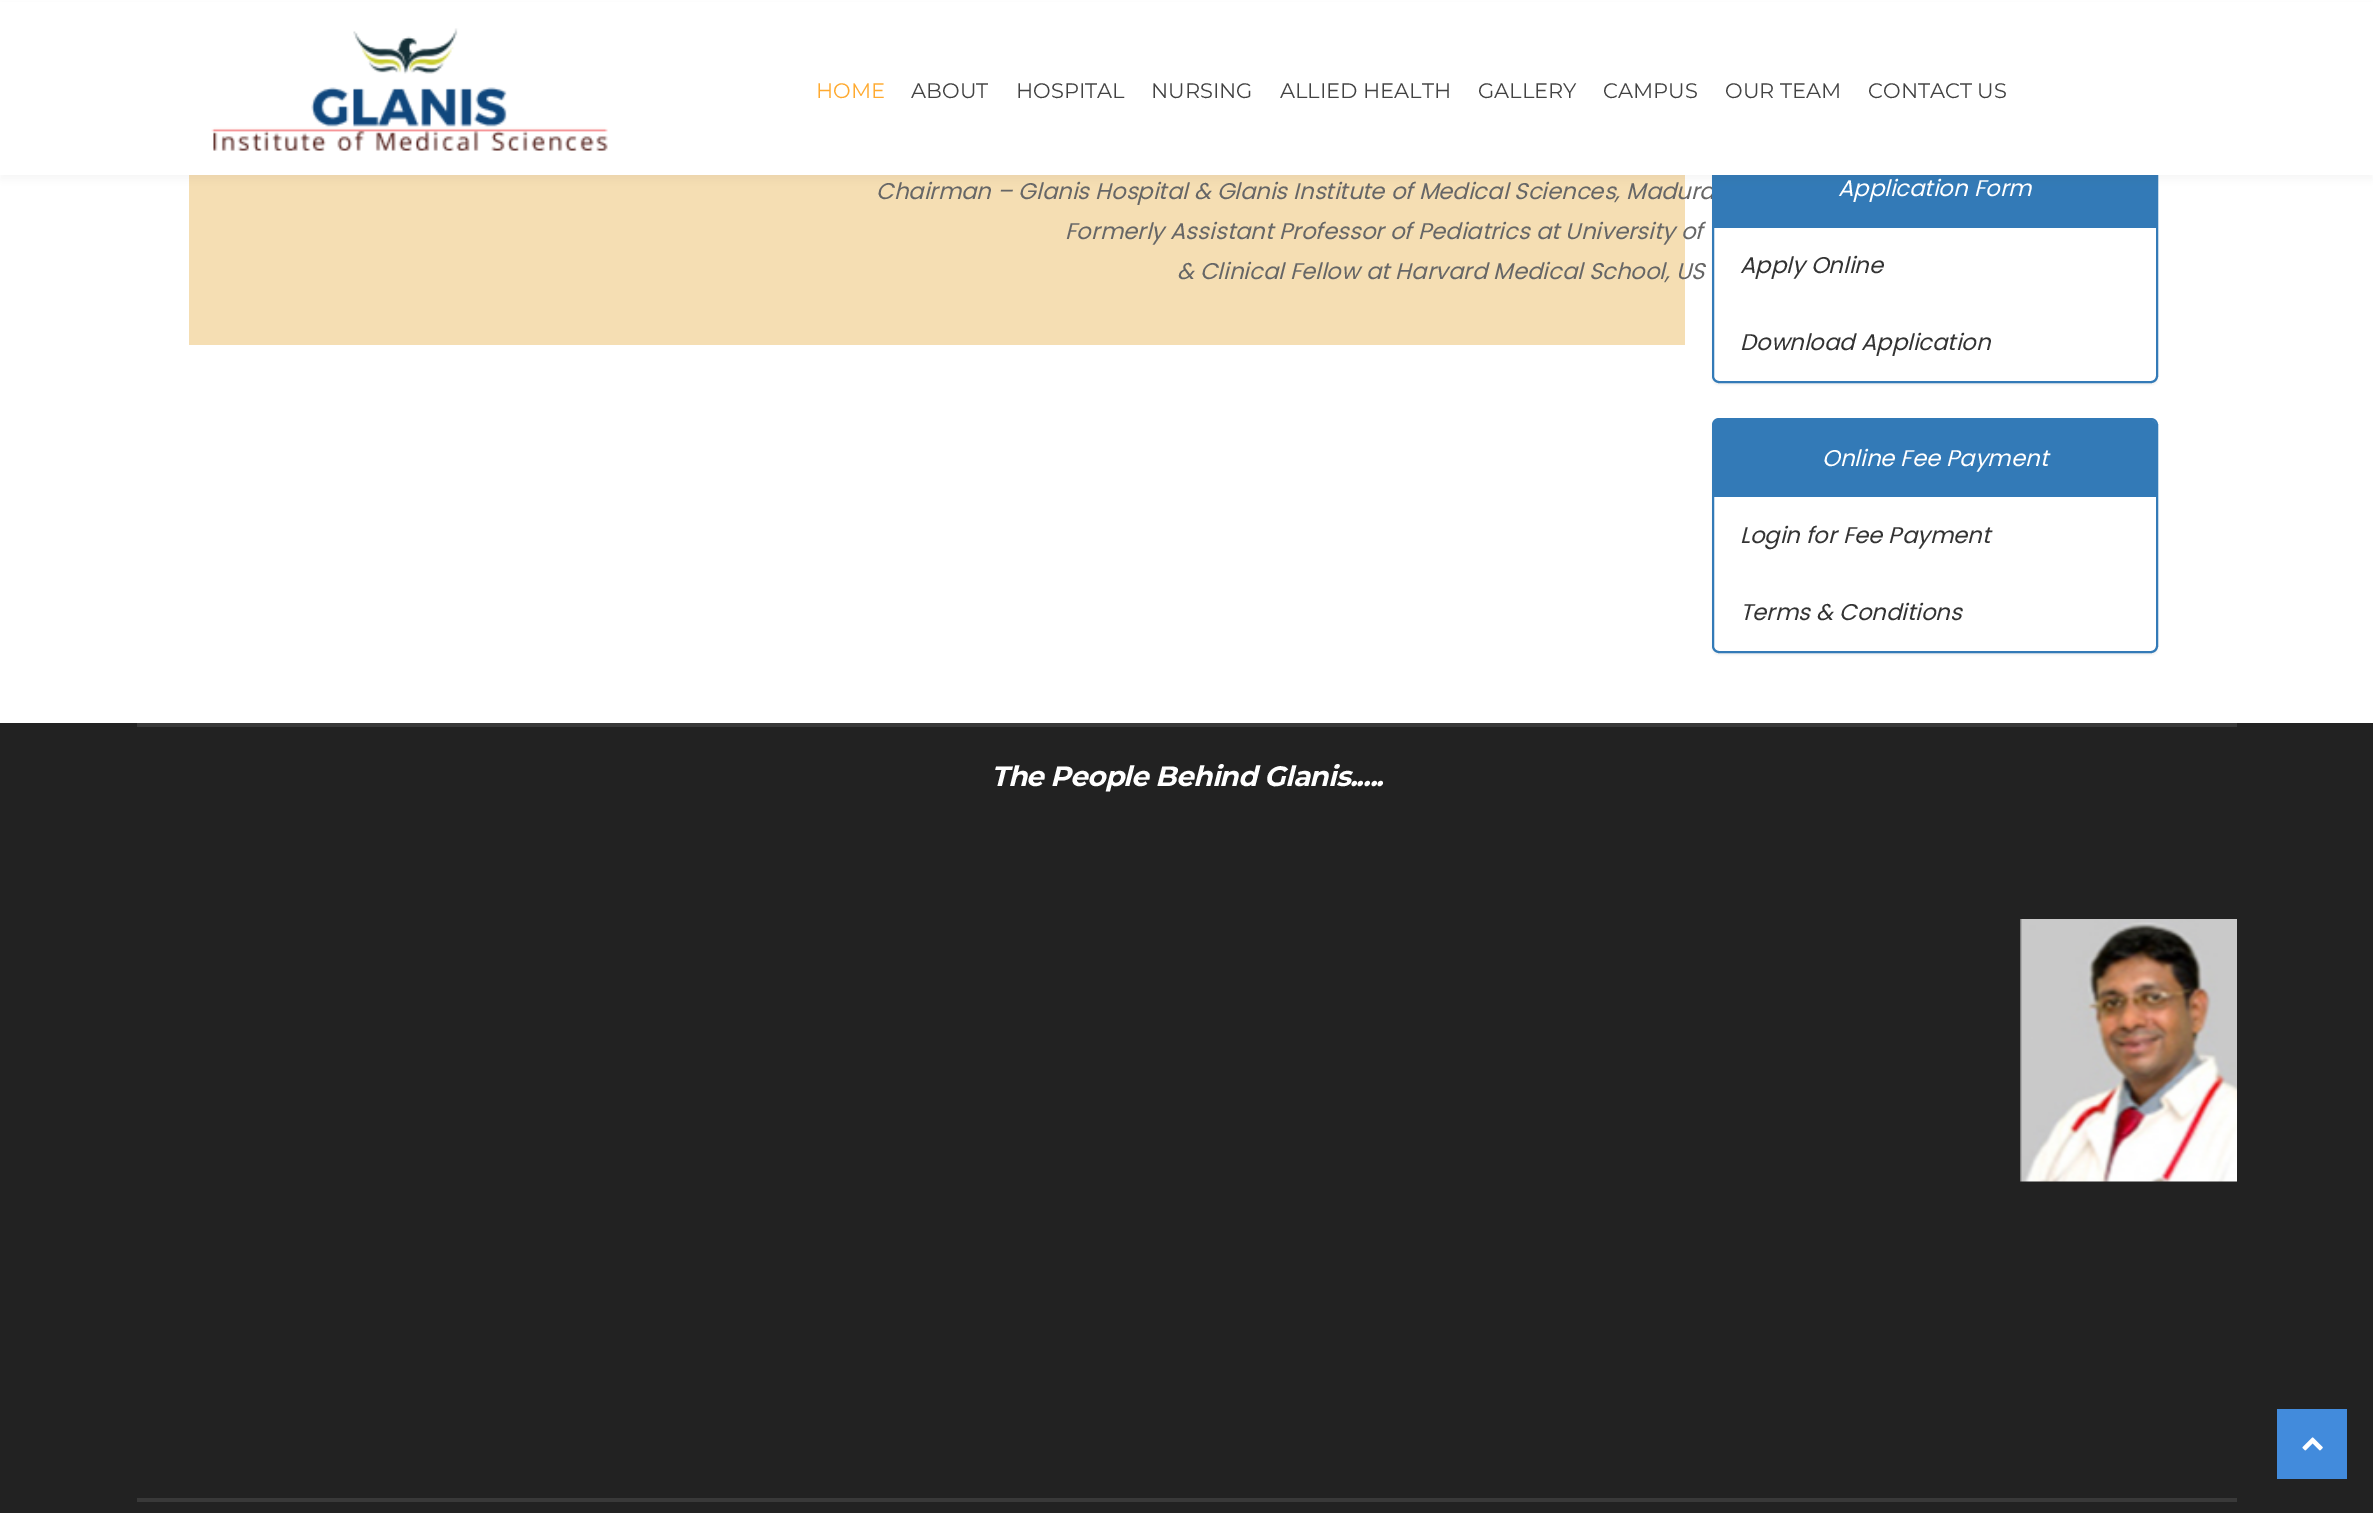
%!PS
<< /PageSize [2373 1513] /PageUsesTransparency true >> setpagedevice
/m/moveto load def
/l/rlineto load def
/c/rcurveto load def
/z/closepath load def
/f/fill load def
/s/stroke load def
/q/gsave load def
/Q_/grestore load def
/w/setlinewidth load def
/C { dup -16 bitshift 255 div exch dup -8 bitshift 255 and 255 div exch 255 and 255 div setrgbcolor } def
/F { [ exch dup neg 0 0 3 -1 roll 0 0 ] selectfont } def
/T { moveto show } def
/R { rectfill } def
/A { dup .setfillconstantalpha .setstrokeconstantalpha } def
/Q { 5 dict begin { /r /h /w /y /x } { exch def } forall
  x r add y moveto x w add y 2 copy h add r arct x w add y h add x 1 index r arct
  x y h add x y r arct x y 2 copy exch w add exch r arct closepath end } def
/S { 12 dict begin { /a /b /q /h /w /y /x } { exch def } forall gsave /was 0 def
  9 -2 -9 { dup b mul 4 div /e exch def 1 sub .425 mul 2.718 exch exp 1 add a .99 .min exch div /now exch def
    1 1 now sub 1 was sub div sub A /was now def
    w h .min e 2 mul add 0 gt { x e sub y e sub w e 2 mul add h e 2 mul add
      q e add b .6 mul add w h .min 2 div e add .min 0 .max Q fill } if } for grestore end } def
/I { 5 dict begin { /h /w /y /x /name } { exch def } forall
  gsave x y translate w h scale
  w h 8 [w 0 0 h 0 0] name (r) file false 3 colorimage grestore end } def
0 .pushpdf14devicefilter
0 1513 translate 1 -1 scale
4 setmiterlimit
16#FFFFFF C
0 0 2373 1513 R
16#F5DEB3 C
189 175 1496 170 R
/Poppins-Italic 22.75 F
16#666666 C
(Chairman – Glanis Hospital & Glanis Institute of Medical Sciences, Madura) 876 199 T
16#000000 C
1712 151 446 234 7 1 .05 S
16#FFFFFF C
1713 150 444 232 6 Q q f Q_
16#337AB7 C
2 w
s
1714 175 442 53 R
16#000000 C
0 5 2373 175 0 4.5 .04 S
16#FFFFFF C
0 2 2373 173 R
(1.rgb) 211 28 397 123 I
/Montserrat-Regular 21 F
16#FFAA30 C
(HOME) 816 98 T
16#424242 C
(ABOUT) 911 98 T
(HOSPITAL) 1016 98 T
(NURSING) 1151 98 T
(ALLIED HEALTH) 1280 98 T
(GALLERY) 1478 98 T
(CAMPUS) 1603 98 T
(OUR TEAM) 1725 98 T
(CONTACT US) 1868 98 T
/Poppins-Italic 22.75 F
16#666666 C
(Formerly Assistant Professor of Pediatrics at University of) 1065 239 T
(& Clinical Fellow at Harvard Medical School, US) 1177 279 T
16#FFFFFF C
(Application Form) 1838 196 T
16#333333 C
(Apply Online) 1740 273 T
(Download Application) 1740 350 T
16#000000 C
1712 420 446 235 7 1 .05 S
16#FFFFFF C
1713 419 444 233 6 Q q f Q_
16#337AB7 C
s
1718 420 m 433 0 l 3 0 5 2 5 5 c 0 72 l -443 0 l 0 -72 l 0 -3 2 -5 5 -5 c z f
16#FFFFFF C
(Online Fee Payment) 1822 466 T
16#333333 C
(Login for Fee Payment) 1740 543 T
(Terms & Conditions) 1740 620 T
16#222222 C
0 723 2373 790 R
16#393939 C
137 723 2100 4 R
/Montserrat-BoldItalic 28 F
16#FFFFFF C
991 786 m -.7 0 (The People Behind Glanis.....) ashow
(2.rgb) 2020 919 217 263 I
16#428BDC C
2277 1409 70 70 R
(3.rgb) 2302 1437 21 14 I
16#393939 C
137 1498 2100 4 R
.poppdf14devicefilter showpage
